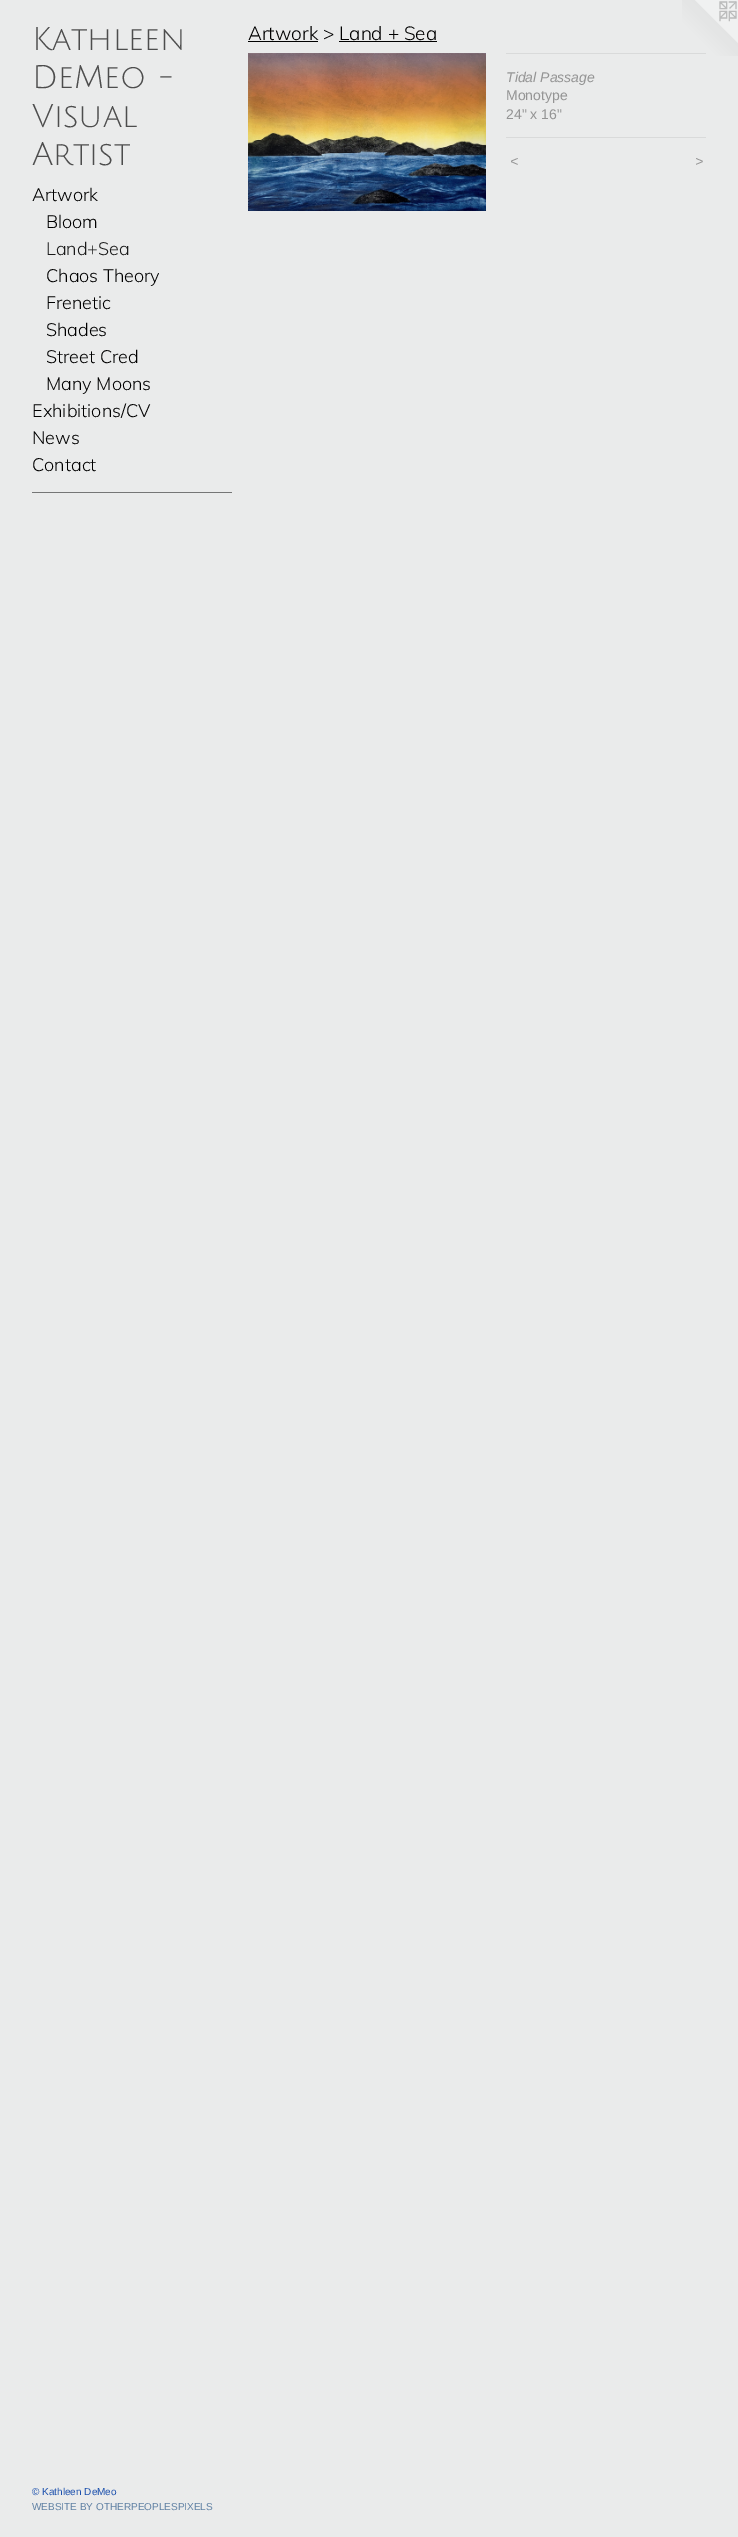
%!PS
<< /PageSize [738 2537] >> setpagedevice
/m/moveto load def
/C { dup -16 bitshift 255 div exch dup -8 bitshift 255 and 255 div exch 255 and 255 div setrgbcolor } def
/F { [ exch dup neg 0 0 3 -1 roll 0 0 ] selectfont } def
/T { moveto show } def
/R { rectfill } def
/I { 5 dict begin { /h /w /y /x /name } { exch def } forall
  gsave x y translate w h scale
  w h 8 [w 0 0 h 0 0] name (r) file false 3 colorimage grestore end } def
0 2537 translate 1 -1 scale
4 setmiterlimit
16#EAEBEB C
0 0 738 2537 R
/JuliusSansOne-Regular 32 F
16#4D4D4D C
(Kathleen) 32 50 T
(DeMeo -) 32 88 T
(Visual) 32 127 T
(Artist) 32 165 T
/Muli-Light 18 F
16#000000 C
(Artwork) 32 201 T
(Bloom) 46 228 T
16#1A1A1A C
(Land+Sea) 46 255 T
16#000000 C
(Chaos Theory) 46 282 T
(Frenetic) 46 309 T
(Shades) 46 336 T
(Street Cred) 46 363 T
(Many Moons) 46 390 T
(Exhibitions/CV) 32 417 T
(News) 32 444 T
(Contact) 32 471 T
16#757676 C
32 492 200 1 R
/LiberationSans-Regular 10 F
16#1A4FAD C
(© Kathleen DeMeo) 32 2495 T
16#6081A4 C
(WEBSITE BY OTHERPEOPLESPIXELS) 32 2510 T
/Muli-Light 19 F
16#000000 C
(Artwork > Land + Sea) 248 40 T
248 41 70 1 R
339 41 98 1 R
(1.rgb) 248 53 238 158 I
(2.rgb) 682 0 56 56 I
16#D9DADA C
506 53 200 1 R
/LiberationSans-Italic 14 F
16#949494 C
(Tidal Passage) 506 82 T
/LiberationSans-Regular 14 F
(Monotype) 506 100 T
(24" x 16") 506 119 T
16#D9DADA C
506 137 200 1 R
/LiberationSans-Italic 14 F
16#949494 C
510 166 m 1 0 (<) ashow
695 166 m 1 0 (>) ashow
showpage
